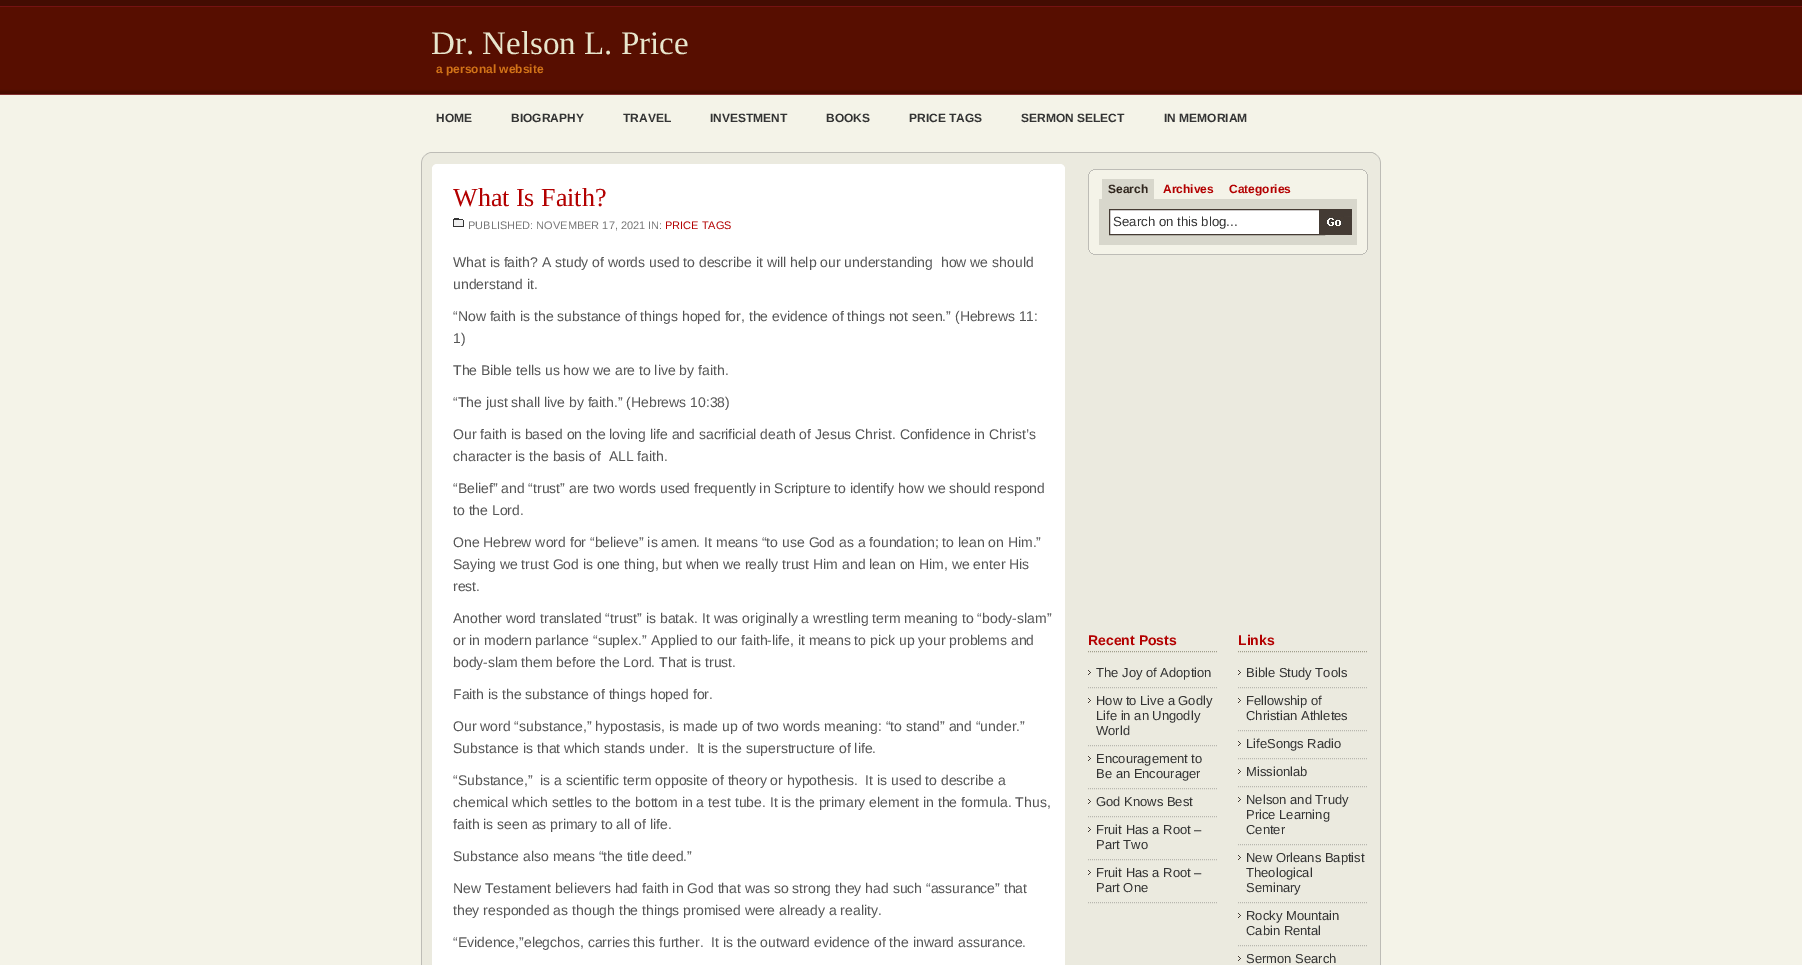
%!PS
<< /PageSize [1802 965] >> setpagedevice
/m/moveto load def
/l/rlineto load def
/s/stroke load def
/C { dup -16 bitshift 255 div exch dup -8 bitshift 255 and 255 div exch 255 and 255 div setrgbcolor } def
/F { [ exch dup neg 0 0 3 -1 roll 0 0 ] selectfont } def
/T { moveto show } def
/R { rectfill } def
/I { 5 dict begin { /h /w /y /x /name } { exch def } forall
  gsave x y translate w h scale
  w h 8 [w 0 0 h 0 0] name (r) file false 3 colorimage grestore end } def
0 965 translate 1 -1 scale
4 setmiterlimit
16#F4F3E8 C
0 0 1802 965 R
(1.rgb) 0 0 1802 95 I
/LiberationSerif-Regular 33 F
16#E8E5CC C
(Dr. Nelson L. Price) 431 54 T
/LiberationSans-Bold 12 F
16#D27318 C
(a personal website) 436 73 T
16#333333 C
(HOME) 436 122 T
(BIOGRAPHY) 511 122 T
(TRAVEL) 623 122 T
(INVESTMENT) 710 122 T
(BOOKS) 826 122 T
(PRICE TAGS) 909 122 T
(SERMON SELECT) 1021 122 T
(IN MEMORIAM) 1164 122 T
(2.rgb) 421 152 960 17 I
(3.rgb) 421 169 960 796 I
/LiberationSerif-Regular 26 F
16#B30000 C
(What Is Faith?) 453 206 T
(4.rgb) 453 218 11 9 I
/LiberationSans-Regular 11 F
16#777777 C
(PUBLISHED: NOVEMBER 17, 2021 IN:) 468 229 T
16#B30000 C
(PRICE TAGS) 665 229 T
/LiberationSans-Regular 14 F
16#555555 C
(What is faith? A study of words used to describe it will help our understanding  how we should) 453 267 T
(understand it.) 453 289 T
(“Now faith is the substance of things hoped for, the evidence of things not seen.” \(Hebrews 11:) 453 321 T
(1\)) 453 343 T
(The Bible tells us how we are to live by faith.) 453 375 T
(“The just shall live by faith.” \(Hebrews 10:38\)) 453 407 T
(Our faith is based on the loving life and sacrificial death of Jesus Christ. Confidence in Christ’s) 453 439 T
(character is the basis of  ALL faith.) 453 461 T
(“Belief” and “trust” are two words used frequently in Scripture to identify how we should respond) 453 493 T
(to the Lord.) 453 515 T
(One Hebrew word for “believe” is amen. It means “to use God as a foundation; to lean on Him.”) 453 547 T
(Saying we trust God is one thing, but when we really trust Him and lean on Him, we enter His) 453 569 T
(rest.) 453 591 T
(Another word translated “trust” is batak. It was originally a wrestling term meaning to “body-slam”) 453 623 T
(or in modern parlance “suplex.” Applied to our faith-life, it means to pick up your problems and) 453 645 T
(body-slam them before the Lord. That is trust.) 453 667 T
(Faith is the substance of things hoped for.) 453 699 T
(Our word “substance,” hypostasis, is made up of two words meaning: “to stand” and “under.”) 453 731 T
(Substance is that which stands under.  It is the superstructure of life.) 453 753 T
(“Substance,”  is a scientific term opposite of theory or hypothesis.  It is used to describe a) 453 785 T
(chemical which settles to the bottom in a test tube. It is the primary element in the formula. Thus,) 453 807 T
(faith is seen as primary to all of life.) 453 829 T
(Substance also means “the title deed.”) 453 861 T
(New Testament believers had faith in God that was so strong they had such “assurance” that) 453 893 T
(they responded as though the things promised were already a reality.) 453 915 T
(“Evidence,”elegchos, carries this further.  It is the outward evidence of the inward assurance.) 453 947 T
16#BDBCB6 C
1093 169 270 1 R
16#F4F3E8 C
1091 170 274 1 R
16#BDBCB6 C
1363 170 2 1 R
1091 170 2 1 R
16#F4F3E8 C
1090 171 276 1 R
16#BDBCB6 C
1365 171 1 1 R
1090 171 1 1 R
16#F4F3E8 C
1089 172 278 80 R
16#BDBCB6 C
1366 172 1 2 R
1089 172 1 2 R
1367 174 1 76 R
1088 174 1 76 R
16#D8D7CC C
1102 179 52 20 R
/LiberationSans-Bold 12 F
16#30261E C
(Search) 1108 193 T
16#B30000 C
(Archives) 1163 193 T
(Categories) 1229 193 T
16#D8D7CC C
1099 199 258 46 R
16#FFFFFF C
1110 210 209 24 R
16#443B34 C
1109.5 209.5 215 25 rectstroke
/LiberationSans-Regular 13.25 F
16#333333 C
(Search on this blog...) 1113 226 T
(5.rgb) 1319 209 33 26 I
16#BDBCB6 C
1366 250 1 2 R
1089 250 1 2 R
16#F4F3E8 C
1090 252 276 1 R
16#BDBCB6 C
1365 252 1 1 R
1090 252 1 1 R
16#F4F3E8 C
1091 253 274 1 R
16#BDBCB6 C
1363 253 2 1 R
1091 253 2 1 R
1093 254 270 1 R
16#A09E8C C
[1 1] 0 setdash
1088 651.5 m 130 0 l s
/LiberationSans-Bold 14 F
16#B30000 C
(Recent Posts) 1088 645 T
(6.rgb) 1088 670 3 5 I
16#B8B7AF C
1088 687.5 m 130 0 l s
/LiberationSans-Regular 13 F
16#333333 C
(The Joy of Adoption) 1096 677 T
(6.rgb) 1088 698 3 5 I
16#B8B7AF C
1088 745.5 m 130 0 l s
16#333333 C
(How to Live a Godly) 1096 705 T
(Life in an Ungodly) 1096 720 T
(World) 1096 735 T
(6.rgb) 1088 756 3 5 I
16#B8B7AF C
1088 788.5 m 130 0 l s
16#333333 C
(Encouragement to) 1096 763 T
(Be an Encourager) 1096 778 T
(6.rgb) 1088 799 3 5 I
16#B8B7AF C
1088 816.5 m 130 0 l s
16#333333 C
(God Knows Best) 1096 806 T
(6.rgb) 1088 827 3 5 I
16#B8B7AF C
1088 859.5 m 130 0 l s
16#333333 C
(Fruit Has a Root –) 1096 834 T
(Part Two) 1096 849 T
(6.rgb) 1088 870 3 5 I
16#B8B7AF C
1088 902.5 m 130 0 l s
16#333333 C
(Fruit Has a Root –) 1096 877 T
(Part One) 1096 892 T
16#A09E8C C
1238 651.5 m 130 0 l s
/LiberationSans-Bold 14 F
16#B30000 C
(Links) 1238 645 T
(6.rgb) 1238 670 3 5 I
16#B8B7AF C
1238 687.5 m 130 0 l s
/LiberationSans-Regular 13 F
16#333333 C
(Bible Study Tools) 1246 677 T
(6.rgb) 1238 698 3 5 I
16#B8B7AF C
1238 730.5 m 130 0 l s
16#333333 C
(Fellowship of) 1246 705 T
(Christian Athletes) 1246 720 T
(6.rgb) 1238 741 3 5 I
16#B8B7AF C
1238 758.5 m 130 0 l s
16#333333 C
(LifeSongs Radio) 1246 748 T
(6.rgb) 1238 769 3 5 I
16#B8B7AF C
1238 786.5 m 130 0 l s
16#333333 C
(Missionlab) 1246 776 T
(6.rgb) 1238 797 3 5 I
16#B8B7AF C
1238 844.5 m 130 0 l s
16#333333 C
(Nelson and Trudy) 1246 804 T
(Price Learning) 1246 819 T
(Center) 1246 834 T
(6.rgb) 1238 855 3 5 I
16#B8B7AF C
1238 902.5 m 130 0 l s
16#333333 C
(New Orleans Baptist) 1246 862 T
(Theological) 1246 877 T
(Seminary) 1246 892 T
(6.rgb) 1238 913 3 5 I
16#B8B7AF C
1238 945.5 m 130 0 l s
16#333333 C
(Rocky Mountain) 1246 920 T
(Cabin Rental) 1246 935 T
(6.rgb) 1238 956 3 5 I
(Sermon Search) 1246 963 T
showpage
